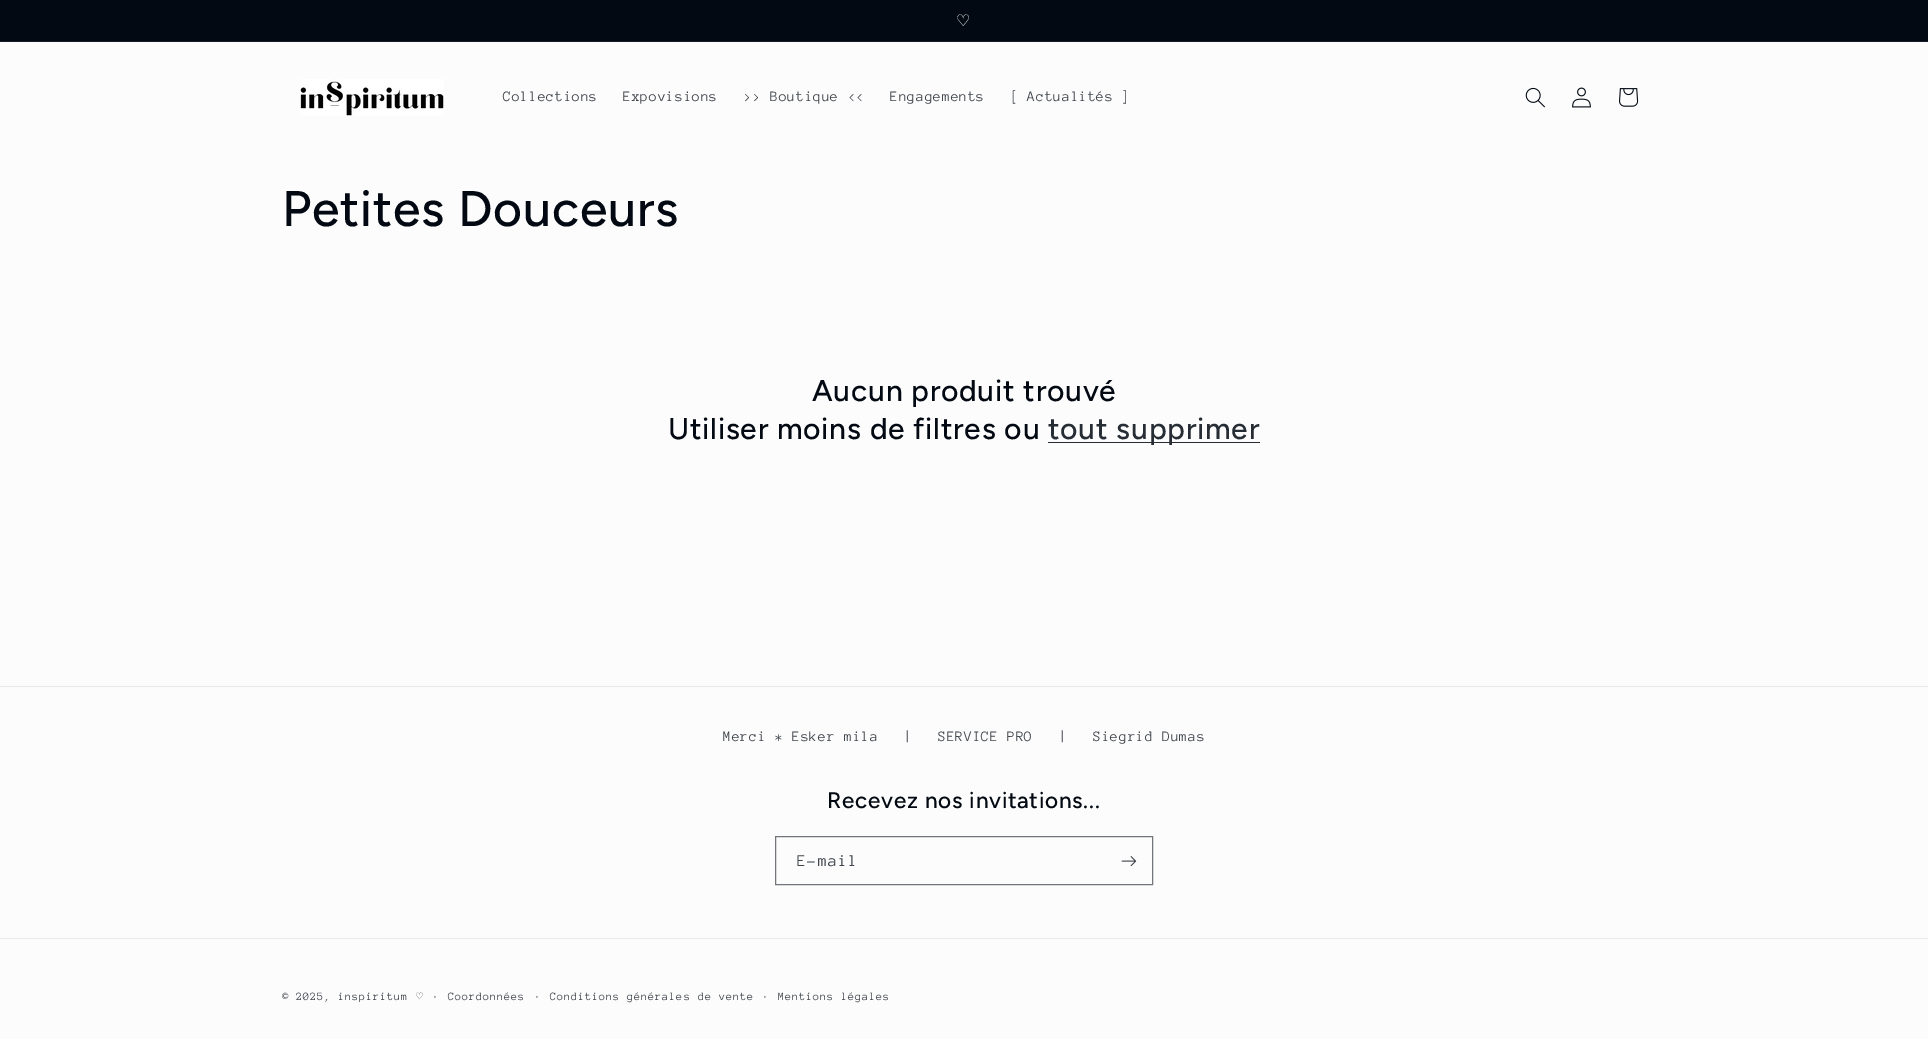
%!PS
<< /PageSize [1928 1039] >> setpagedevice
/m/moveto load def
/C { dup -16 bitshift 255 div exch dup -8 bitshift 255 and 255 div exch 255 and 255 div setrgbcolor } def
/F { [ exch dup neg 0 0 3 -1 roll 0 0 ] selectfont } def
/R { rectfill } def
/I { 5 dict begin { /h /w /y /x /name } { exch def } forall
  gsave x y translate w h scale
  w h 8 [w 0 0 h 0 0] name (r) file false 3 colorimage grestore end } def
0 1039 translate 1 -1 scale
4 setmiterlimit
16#FCFCFC C
0 0 1928 1039 R
16#020912 C
0 0 1928 41 R
16#161C25 C
0 41 1928 1 R
/DejaVuSans-Regular 16 F
16#FCFCFC C
956 26 m 1 0 (♡) ashow
(1.rgb) 300 79 144 37 I
/AnonymousPro-Regular 14.75 F
16#41464D C
503 101 m .6 0 (Collections) ashow
623 101 m .6 0 (Expovisions) ashow
744 101 m .6 0 (>> Boutique <<) ashow
890 101 m .6 0 (Engagements) ashow
1010 101 m .6 0 ([ Actualités ]) ashow
(2.rgb) 1525 87 20 21 I
(3.rgb) 1572 87 19 21 I
(4.rgb) 1619 88 20 19 I
/Figtree-Medium 50 F
16#020912 C
282 226 m .75 0 (Petites Douceurs) ashow
/Figtree-Medium 30 F
812 401 m .75 0 (Aucun produit trouvé) ashow
668 439 m .75 0 (Utiliser moins de filtres ou) ashow
16#282D35 C
1048 442 212 1 R
16#272D35 C
1048 439 m .75 0 (tout supprimer) ashow
16#E8E9E9 C
0 686 1928 1 R
/AnonymousPro-Regular 14.75 F
16#41464D C
723 741 m .6 0 (Merci * Esker mila) ashow
904 741 m .6 0 (|) ashow
938 741 m .6 0 (SERVICE PRO) ashow
1059 741 m .6 0 (|) ashow
1093 741 m .6 0 (Siegrid Dumas) ashow
/Figtree-Medium 22.5 F
16#020912 C
827 808 m .75 0 (Recevez nos invitations...) ashow
16#72767B C
775.5 836.5 377 48 rectstroke
/AnonymousPro-Regular 17 F
16#41464D C
797 866 m 1 0 (E-mail) ashow
(5.rgb) 1121 856 16 11 I
16#E8E9E9 C
0 938 1928 1 R
/AnonymousPro-Regular 11.5 F
16#41464D C
282 1000 m .75 0 (© 2025, inspiritum) ashow
/DejaVuSansMono-Regular 11.5 F
416 1000 m .75 0 (♡) ashow
/AnonymousPro-Regular 13 F
432 1000 m .75 0 (·) ashow
/AnonymousPro-Regular 11.5 F
448 1000 m .75 0 (Coordonnées) ashow
/AnonymousPro-Regular 13 F
534 1000 m .75 0 (·) ashow
/AnonymousPro-Regular 11.5 F
550 1000 m .75 0 (Conditions générales de vente) ashow
/AnonymousPro-Regular 13 F
762 1000 m .75 0 (·) ashow
/AnonymousPro-Regular 11.5 F
778 1000 m .75 0 (Mentions légales) ashow
showpage
